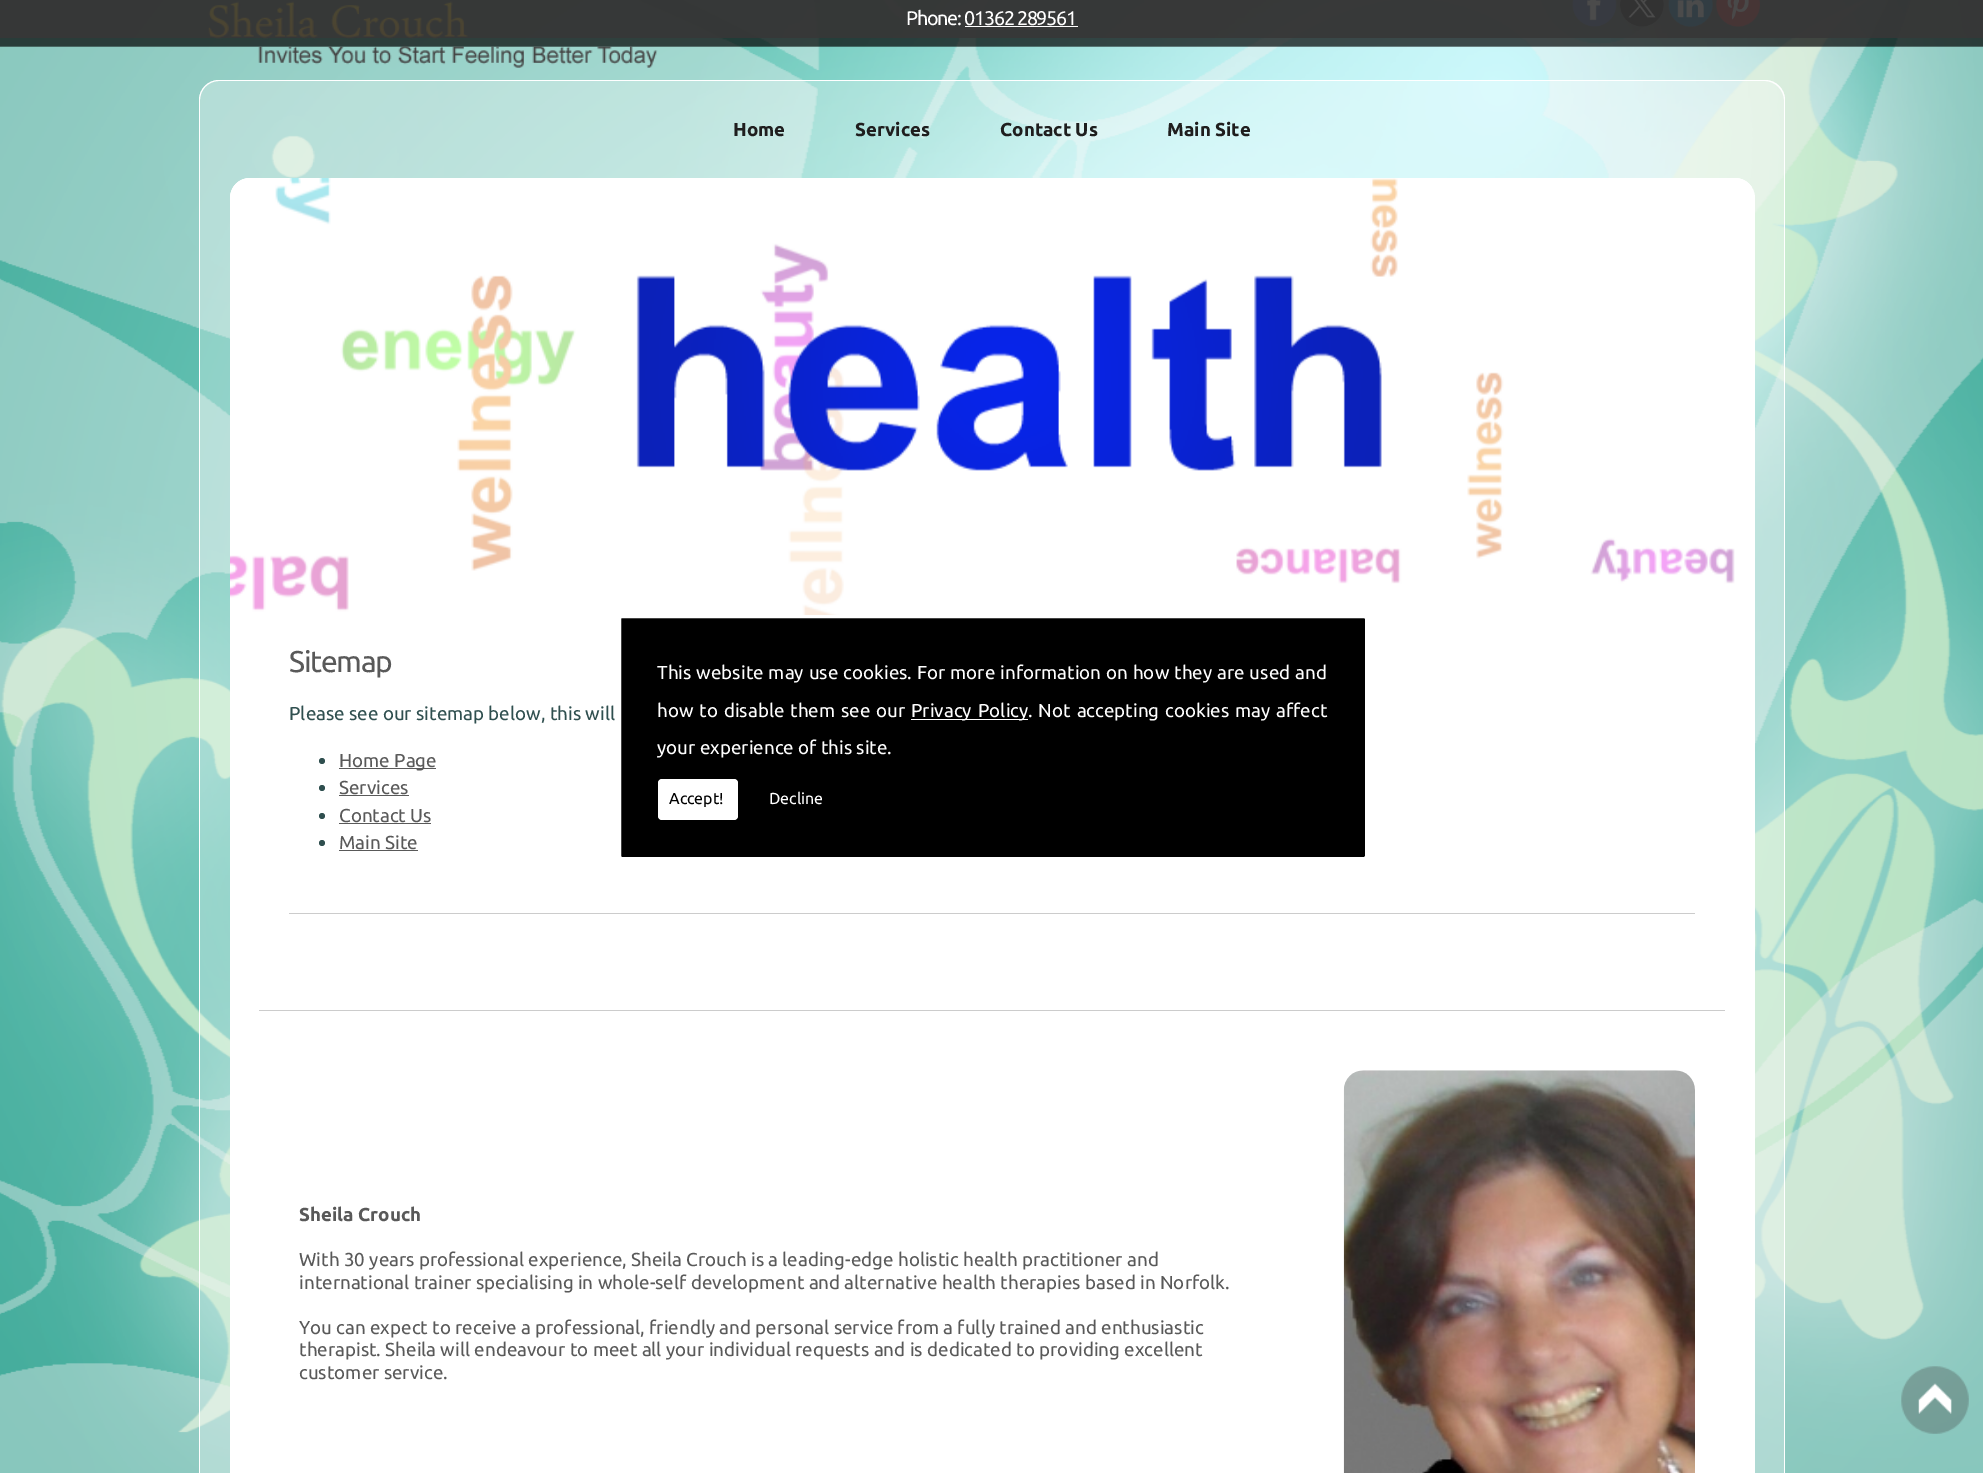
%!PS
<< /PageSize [1983 1473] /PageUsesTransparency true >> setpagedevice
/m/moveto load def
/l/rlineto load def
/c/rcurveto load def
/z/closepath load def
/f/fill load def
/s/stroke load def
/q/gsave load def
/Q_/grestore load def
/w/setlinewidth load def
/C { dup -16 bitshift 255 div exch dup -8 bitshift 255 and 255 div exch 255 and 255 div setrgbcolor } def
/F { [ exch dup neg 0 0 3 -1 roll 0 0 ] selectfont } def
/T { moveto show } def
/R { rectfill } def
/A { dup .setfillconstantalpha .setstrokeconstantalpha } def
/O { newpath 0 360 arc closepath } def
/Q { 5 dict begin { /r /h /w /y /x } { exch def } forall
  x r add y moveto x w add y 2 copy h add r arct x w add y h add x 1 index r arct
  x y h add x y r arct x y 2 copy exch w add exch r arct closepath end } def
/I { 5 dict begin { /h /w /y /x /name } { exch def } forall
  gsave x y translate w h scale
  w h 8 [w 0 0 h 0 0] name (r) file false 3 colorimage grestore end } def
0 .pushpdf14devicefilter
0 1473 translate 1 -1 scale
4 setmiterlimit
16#FFFFFF C
0 0 1983 1473 R
(1.rgb) 0 0 1983 1473 I
(2.rgb) 208 1 450 67 I
(3.rgb) 1572 0 45 27 I
(4.rgb) 1620 0 44 27 I
(5.rgb) 1668 0 45 27 I
(6.rgb) 1716 0 44 27 I
0.9 A
16#373737 C
0 0 1983 38 R
/Ubuntu-Regular 19.75 F
1 A
16#FFFFFF C
906 25 m -1.25 0 (Phone: 01362 289561) ashow
965 26 113 1 R
0.3 A
219 80 m 1546 0 l 11 0 20 9 20 20 c 0 78 l -1586 0 l 0 -78 l 0 -11 9 -20 20 -20 c z f
1 A
219 80 m 1546 0 l 11 0 20 9 20 20 c 0 78 l -1586 0 l 0 -78 l 0 -11 9 -20 20 -20 c z 219 81 m 1546 0 l 10 0 19 9 19 19 c 0 78 l -1584 0 l 0 -78 l 0 -10 8 -19 19 -19 c z eofill
/Ubuntu-Bold 18.75 F
16#1F1E1E C
(Home) 733 136 T
(Services) 855 136 T
(Contact Us) 1000 136 T
(Main Site) 1167 136 T
0.3 A
16#FFFFFF C
200 178 1584 440 R
1 A
250 178 m 1485 0 l 11 0 20 9 20 20 c 0 420 l -1525 0 l 0 -420 l 0 -11 9 -20 20 -20 c z f
(7.rgb) 230 178 1522 440 I
0.3 A
200 618 1584 362 R
1 A
1784 178 1 802 R
199 178 1 802 R
230 618 1525 362 R
/Ubuntu-Regular 30 F
16#595959 C
289 672 m -1.25 0 (Sitemap) ashow
/Ubuntu-Regular 18.75 F
16#2F4F4F C
(Please see our sitemap below, this will) 289 720 T
322 761 3 O f
16#595959 C
339 768 97 1 R
(Home Page) 339 767 T
16#2F4F4F C
322 788 3 O f
16#595959 C
(Services) 339 794 T
339 795 70 1 R
16#2F4F4F C
322 816 3 O f
16#595959 C
(Contact Us) 339 822 T
339 823 92 1 R
16#2F4F4F C
322 843 3 O f
16#595959 C
(Main Site) 339 849 T
339 850 79 1 R
16#CCCCCC C
289 913 1406 1 R
0.3 A
16#FFFFFF C
200 980 1584 493 R
1 A
199 980 m 1586 0 l 0 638 l 0 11 -9 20 -20 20 c -1546 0 l -11 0 -20 -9 -20 -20 c z 200 980 m 1584 0 l 0 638 l 0 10 -9 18 -19 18 c -1546 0 l -11 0 -19 -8 -19 -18 c z eofill
230 980 1525 493 R
16#CCCCCC C
259 1010 1466 1 R
/Ubuntu-Bold 18.75 F
16#595959 C
(Sheila Crouch) 299 1221 T
/Ubuntu-Regular 18.75 F
(With 30 years professional experience, Sheila Crouch is a leading-edge holistic health practitioner and) 299 1266 T
(international trainer specialising in whole-self development and alternative health therapies based in Norfolk.) 299 1289 T
(You can expect to receive a professional, friendly and personal service from a fully trained and enthusiastic) 299 1334 T
(therapist. Sheila will endeavour to meet all your individual requests and is dedicated to providing excellent) 299 1356 T
(customer service.) 299 1379 T
(8.rgb) 1343 1070 352 403 I
16#000000 C
619.5 616.5 747 242 2.5 Q q f Q_
16#FFFFFF C
3 w
s
657 679 m .6 0 32 (This website may use cookies. For more information on how they are used and) widthshow
657 717 m 1.5 0 32 (how to disable them see our) widthshow
911 719 117 1 R
911 717 m 2 0 32 (Privacy Policy) widthshow
1028 717 m 1.5 0 32 (. Not accepting cookies may affect) widthshow
(your experience of this site.) 657 754 T
658 779 80 41 4 Q f
/Ubuntu-Regular 16 F
16#000000 C
(Accept!) 669 804 T
16#FFFFFF C
(Decline) 769 804 T
(9.rgb) 1901 1366 68 68 I
.poppdf14devicefilter showpage
